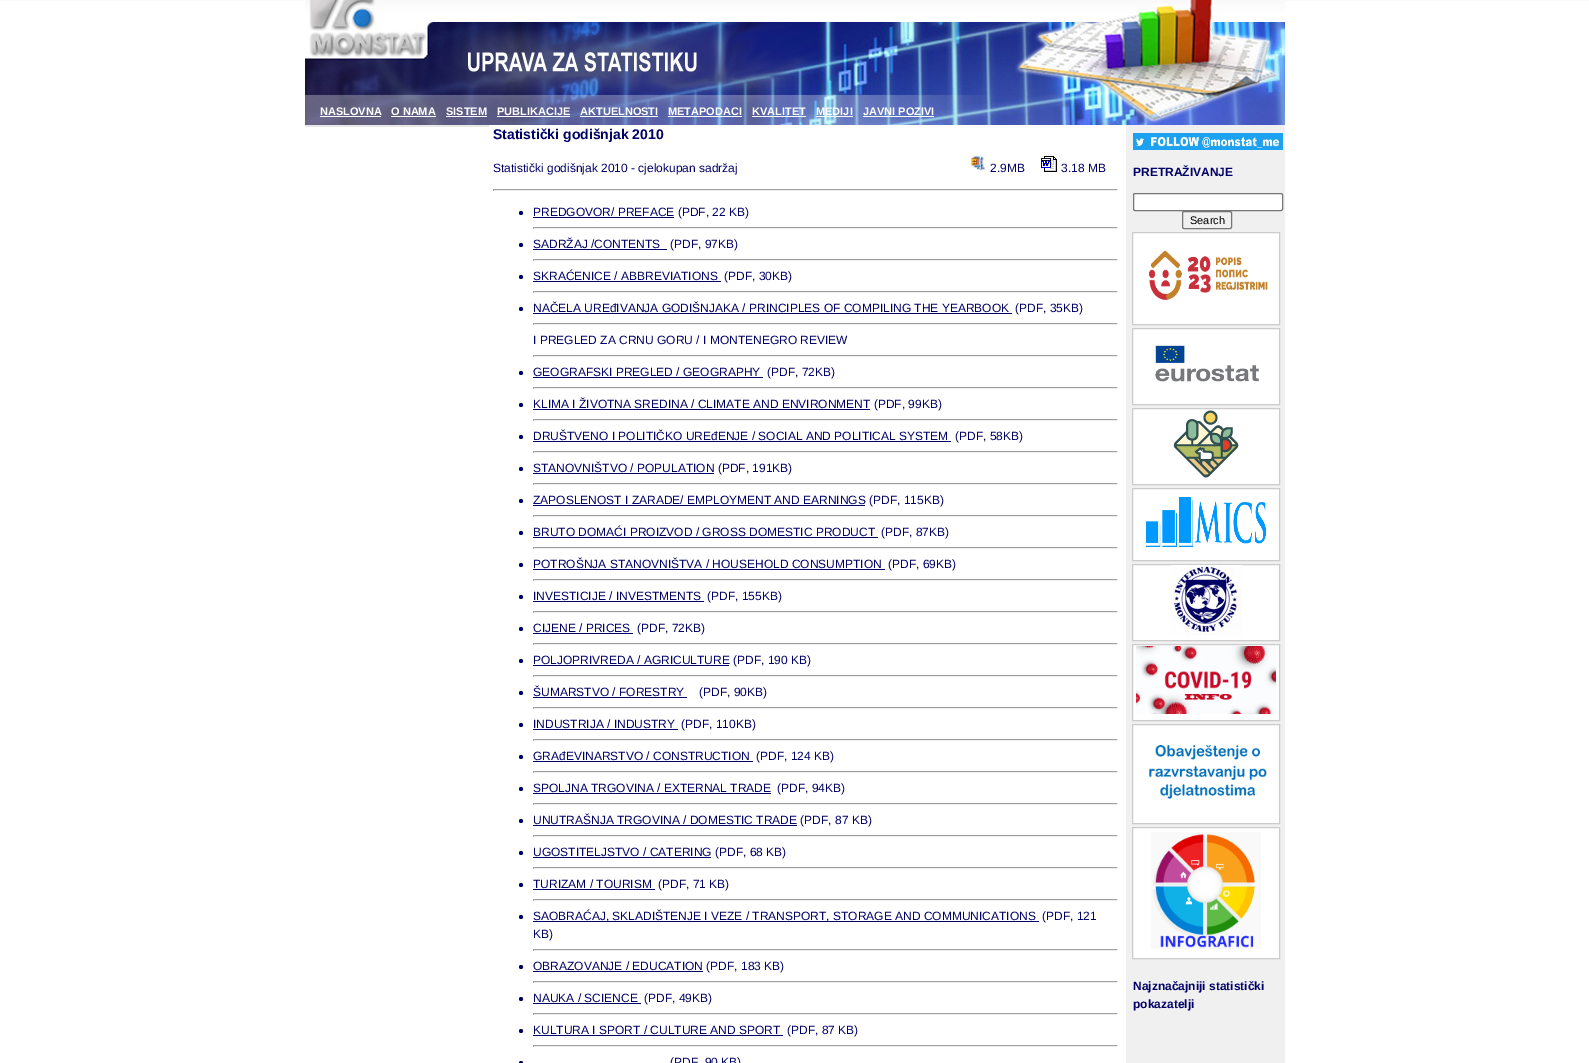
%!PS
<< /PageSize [1589 1063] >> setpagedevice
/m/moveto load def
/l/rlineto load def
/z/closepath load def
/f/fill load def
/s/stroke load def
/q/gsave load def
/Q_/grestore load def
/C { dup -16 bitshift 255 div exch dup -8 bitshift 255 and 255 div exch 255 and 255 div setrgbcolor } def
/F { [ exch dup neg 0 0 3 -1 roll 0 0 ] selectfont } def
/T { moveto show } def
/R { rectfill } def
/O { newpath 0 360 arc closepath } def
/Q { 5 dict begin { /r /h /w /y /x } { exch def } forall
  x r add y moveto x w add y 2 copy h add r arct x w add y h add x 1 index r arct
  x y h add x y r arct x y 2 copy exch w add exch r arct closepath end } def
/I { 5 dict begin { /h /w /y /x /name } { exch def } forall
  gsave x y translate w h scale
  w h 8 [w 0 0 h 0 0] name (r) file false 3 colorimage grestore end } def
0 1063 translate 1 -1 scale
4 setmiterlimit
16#FFFFFF C
0 0 1589 1063 R
16#FAFAFA C
0 0 1589 1 R
(1.rgb) 305 0 980 22 I
(2.rgb) 305 22 980 103 I
/LiberationSans-Bold 11 F
16#FFFFFF C
(NASLOVNA) 320 115 T
320 116 61 1 R
(O NAMA) 391 115 T
391 116 45 1 R
(SISTEM) 446 115 T
446 116 41 1 R
(PUBLIKACIJE) 497 115 T
497 116 73 1 R
(AKTUELNOSTI) 580 115 T
580 116 78 1 R
(METAPODACI) 668 115 T
668 116 74 1 R
(KVALITET) 752 115 T
752 116 54 1 R
(MEDIJI) 816 115 T
816 116 37 1 R
(JAVNI POZIVI) 863 115 T
863 116 71 1 R
16#E8E8E8 C
305 125 184 2 R
/LiberationSans-Bold 14 F
16#000066 C
(Statistički godišnjak 2010) 493 139 T
/LiberationSans-Regular 12 F
(Statistički godišnjak 2010 - cjelokupan sadržaj) 493 172 T
(3.rgb) 971 156 15 15 I
(2.9MB) 990 172 T
(4.rgb) 1041 156 16 16 I
(3.18 MB) 1061 172 T
16#9F9F9F C
493 189 625 1 R
16#EEEEEE C
1117 189 1 2 R
493 190 625 1 R
16#9F9F9F C
493 189 1 2 R
16#000066 C
521 213 2 O f
533 217 141 1 R
(PREDGOVOR/ PREFACE \(PDF, 22 KB\)) 533 216 T
16#9F9F9F C
533 227 585 1 R
16#EEEEEE C
1117 227 1 2 R
533 228 585 1 R
16#9F9F9F C
533 227 1 2 R
16#000066 C
521 245 2 O f
(SADRŽAJ /CONTENTS) 533 248 T
533 249 134 1 R
(\(PDF, 97KB\)) 670 248 T
16#9F9F9F C
533 259 585 1 R
16#EEEEEE C
1117 259 1 2 R
533 260 585 1 R
16#9F9F9F C
533 259 1 2 R
16#000066 C
521 277 2 O f
(SKRAĆENICE / ABBREVIATIONS) 533 280 T
533 281 188 1 R
(\(PDF, 30KB\)) 724 280 T
16#9F9F9F C
533 291 585 1 R
16#EEEEEE C
1117 291 1 2 R
533 292 585 1 R
16#9F9F9F C
533 291 1 2 R
16#000066 C
521 309 2 O f
(NAČELA UREđIVANJA GODIŠNJAKA / PRINCIPLES OF COMPILING THE YEARBOOK) 533 312 T
533 313 479 1 R
(\(PDF, 35KB\)) 1015 312 T
16#9F9F9F C
533 323 585 1 R
16#EEEEEE C
1117 323 1 2 R
533 324 585 1 R
16#9F9F9F C
533 323 1 2 R
16#000066 C
(I PREGLED ZA CRNU GORU / I MONTENEGRO REVIEW) 533 344 T
16#9F9F9F C
533 355 585 1 R
16#EEEEEE C
1117 355 1 2 R
533 356 585 1 R
16#9F9F9F C
533 355 1 2 R
16#000066 C
521 373 2 O f
(GEOGRAFSKI PREGLED / GEOGRAPHY) 533 376 T
533 377 230 1 R
(\(PDF, 72KB\)) 767 376 T
16#9F9F9F C
533 387 585 1 R
16#EEEEEE C
1117 387 1 2 R
533 388 585 1 R
16#9F9F9F C
533 387 1 2 R
16#000066 C
521 405 2 O f
533 409 337 1 R
(KLIMA I ŽIVOTNA SREDINA / CLIMATE AND ENVIRONMENT \(PDF, 99KB\)) 533 408 T
16#9F9F9F C
533 419 585 1 R
16#EEEEEE C
1117 419 1 2 R
533 420 585 1 R
16#9F9F9F C
533 419 1 2 R
16#000066 C
521 437 2 O f
(DRUŠTVENO I POLITIČKO UREđENJE / SOCIAL AND POLITICAL SYSTEM) 533 440 T
533 441 418 1 R
(\(PDF, 58KB\)) 955 440 T
16#9F9F9F C
533 451 585 1 R
16#EEEEEE C
1117 451 1 2 R
533 452 585 1 R
16#9F9F9F C
533 451 1 2 R
16#000066 C
521 469 2 O f
533 473 181 1 R
(STANOVNIŠTVO / POPULATION \(PDF, 191KB\)) 533 472 T
16#9F9F9F C
533 483 585 1 R
16#EEEEEE C
1117 483 1 2 R
533 484 585 1 R
16#9F9F9F C
533 483 1 2 R
16#000066 C
521 501 2 O f
533 505 332 1 R
(ZAPOSLENOST I ZARADE/ EMPLOYMENT AND EARNINGS \(PDF, 115KB\)) 533 504 T
16#9F9F9F C
533 515 585 1 R
16#EEEEEE C
1117 515 1 2 R
533 516 585 1 R
16#9F9F9F C
533 515 1 2 R
16#000066 C
521 533 2 O f
(BRUTO DOMAĆI PROIZVOD / GROSS DOMESTIC PRODUCT) 533 536 T
533 537 345 1 R
(\(PDF, 87KB\)) 881 536 T
16#9F9F9F C
533 547 585 1 R
16#EEEEEE C
1117 547 1 2 R
533 548 585 1 R
16#9F9F9F C
533 547 1 2 R
16#000066 C
521 565 2 O f
(POTROŠNJA STANOVNIŠTVA / HOUSEHOLD CONSUMPTION) 533 568 T
533 569 352 1 R
(\(PDF, 69KB\)) 888 568 T
16#9F9F9F C
533 579 585 1 R
16#EEEEEE C
1117 579 1 2 R
533 580 585 1 R
16#9F9F9F C
533 579 1 2 R
16#000066 C
521 597 2 O f
(INVESTICIJE / INVESTMENTS) 533 600 T
533 601 171 1 R
(\(PDF, 155KB\)) 707 600 T
16#9F9F9F C
533 611 585 1 R
16#EEEEEE C
1117 611 1 2 R
533 612 585 1 R
16#9F9F9F C
533 611 1 2 R
16#000066 C
521 629 2 O f
(CIJENE / PRICES) 533 632 T
533 633 100 1 R
(\(PDF, 72KB\)) 637 632 T
16#9F9F9F C
533 643 585 1 R
16#EEEEEE C
1117 643 1 2 R
533 644 585 1 R
16#9F9F9F C
533 643 1 2 R
16#000066 C
521 661 2 O f
533 665 196 1 R
(POLJOPRIVREDA / AGRICULTURE \(PDF, 190 KB\)) 533 664 T
16#9F9F9F C
533 675 585 1 R
16#EEEEEE C
1117 675 1 2 R
533 676 585 1 R
16#9F9F9F C
533 675 1 2 R
16#000066 C
521 693 2 O f
(ŠUMARSTVO / FORESTRY) 533 696 T
533 697 154 1 R
(\(PDF, 90KB\)) 699 696 T
16#9F9F9F C
533 707 585 1 R
16#EEEEEE C
1117 707 1 2 R
533 708 585 1 R
16#9F9F9F C
533 707 1 2 R
16#000066 C
521 725 2 O f
(INDUSTRIJA / INDUSTRY) 533 728 T
533 729 145 1 R
(\(PDF, 110KB\)) 681 728 T
16#9F9F9F C
533 739 585 1 R
16#EEEEEE C
1117 739 1 2 R
533 740 585 1 R
16#9F9F9F C
533 739 1 2 R
16#000066 C
521 757 2 O f
(GRAđEVINARSTVO / CONSTRUCTION) 533 760 T
533 761 220 1 R
(\(PDF, 124 KB\)) 756 760 T
16#9F9F9F C
533 771 585 1 R
16#EEEEEE C
1117 771 1 2 R
533 772 585 1 R
16#9F9F9F C
533 771 1 2 R
16#000066 C
521 789 2 O f
(SPOLJNA TRGOVINA / EXTERNAL TRADE) 533 792 T
533 793 238 1 R
(\(PDF, 94KB\)) 777 792 T
16#9F9F9F C
533 803 585 1 R
16#EEEEEE C
1117 803 1 2 R
533 804 585 1 R
16#9F9F9F C
533 803 1 2 R
16#000066 C
521 821 2 O f
533 825 264 1 R
(UNUTRAŠNJA TRGOVINA / DOMESTIC TRADE \(PDF, 87 KB\)) 533 824 T
16#9F9F9F C
533 835 585 1 R
16#EEEEEE C
1117 835 1 2 R
533 836 585 1 R
16#9F9F9F C
533 835 1 2 R
16#000066 C
521 853 2 O f
533 857 178 1 R
(UGOSTITELJSTVO / CATERING \(PDF, 68 KB\)) 533 856 T
16#9F9F9F C
533 867 585 1 R
16#EEEEEE C
1117 867 1 2 R
533 868 585 1 R
16#9F9F9F C
533 867 1 2 R
16#000066 C
521 885 2 O f
(TURIZAM / TOURISM) 533 888 T
533 889 122 1 R
(\(PDF, 71 KB\)) 658 888 T
16#9F9F9F C
533 899 585 1 R
16#EEEEEE C
1117 899 1 2 R
533 900 585 1 R
16#9F9F9F C
533 899 1 2 R
16#000066 C
521 917 2 O f
533 921 506 1 R
(SAOBRAĆAJ, SKLADIŠTENJE I VEZE / TRANSPORT, STORAGE AND COMMUNICATIONS) 533 920 T
(\(PDF, 121) 1042 920 T
(KB\)) 533 938 T
16#9F9F9F C
533 949 585 1 R
16#EEEEEE C
1117 949 1 2 R
533 950 585 1 R
16#9F9F9F C
533 949 1 2 R
16#000066 C
521 967 2 O f
533 971 170 1 R
(OBRAZOVANJE / EDUCATION \(PDF, 183 KB\)) 533 970 T
16#9F9F9F C
533 981 585 1 R
16#EEEEEE C
1117 981 1 2 R
533 982 585 1 R
16#9F9F9F C
533 981 1 2 R
16#000066 C
521 999 2 O f
(NAUKA / SCIENCE) 533 1002 T
533 1003 108 1 R
(\(PDF, 49KB\)) 644 1002 T
16#9F9F9F C
533 1013 585 1 R
16#EEEEEE C
1117 1013 1 2 R
533 1014 585 1 R
16#9F9F9F C
533 1013 1 2 R
16#000066 C
521 1031 2 O f
(KULTURA I SPORT / CULTURE AND SPORT) 533 1034 T
533 1035 250 1 R
(\(PDF, 87 KB\)) 787 1034 T
16#9F9F9F C
533 1045 585 1 R
16#EEEEEE C
1117 1045 1 2 R
533 1046 585 1 R
16#9F9F9F C
533 1045 1 2 R
16#000066 C
521 1063 2 O f
(\(PDF, 90 KB\)) 670 1066 T
16#F0F0F0 C
1126 125 159 938 R
(5.rgb) 1133 133 150 17 I
/LiberationSans-Bold 12 F
16#000066 C
(PRETRAŽIVANJE) 1133 176 T
16#FFFFFF C
1133.5 193.5 149 17 1.5 Q q f Q_
16#767676 C
s
1182.5 211.5 49 17 1.5 Q s
/LiberationSans-Regular 11 F
16#000000 C
(Search) 1190 224 T
16#FFFFFF C
1132.5 232.5 m 147 0 l 0 92 l -147 0 l z q f Q_
16#CCCCCC C
s
(6.rgb) 1149 250 119 51 I
16#FFFFFF C
1132.5 328.5 m 147 0 l 0 76 l -147 0 l z q f Q_
16#CCCCCC C
s
(7.rgb) 1155 345 104 37 I
16#FFFFFF C
1132.5 408.5 m 147 0 l 0 76 l -147 0 l z q f Q_
16#CCCCCC C
s
(8.rgb) 1173 410 66 68 I
16#FFFFFF C
1132.5 488.5 m 147 0 l 0 72 l -147 0 l z q f Q_
16#CCCCCC C
s
(9.rgb) 1146 497 120 50 I
16#FFFFFF C
1132.5 564.5 m 147 0 l 0 76 l -147 0 l z q f Q_
16#CCCCCC C
s
(10.rgb) 1171 565 71 70 I
16#FFFFFF C
1132.5 644.5 m 147 0 l 0 76 l -147 0 l z q f Q_
16#CCCCCC C
s
(11.rgb) 1136 646 140 68 I
16#FFFFFF C
1132.5 724.5 m 147 0 l 0 99 l -147 0 l z q f Q_
16#CCCCCC C
s
(12.rgb) 1149 745 118 54 I
16#FFFFFF C
1132.5 827.5 m 147 0 l 0 131 l -147 0 l z q f Q_
16#CCCCCC C
s
(13.rgb) 1151 832 110 117 I
/LiberationSans-Bold 12 F
16#000066 C
(Najznačajniji statistički) 1133 990 T
(pokazatelji) 1133 1008 T
showpage
